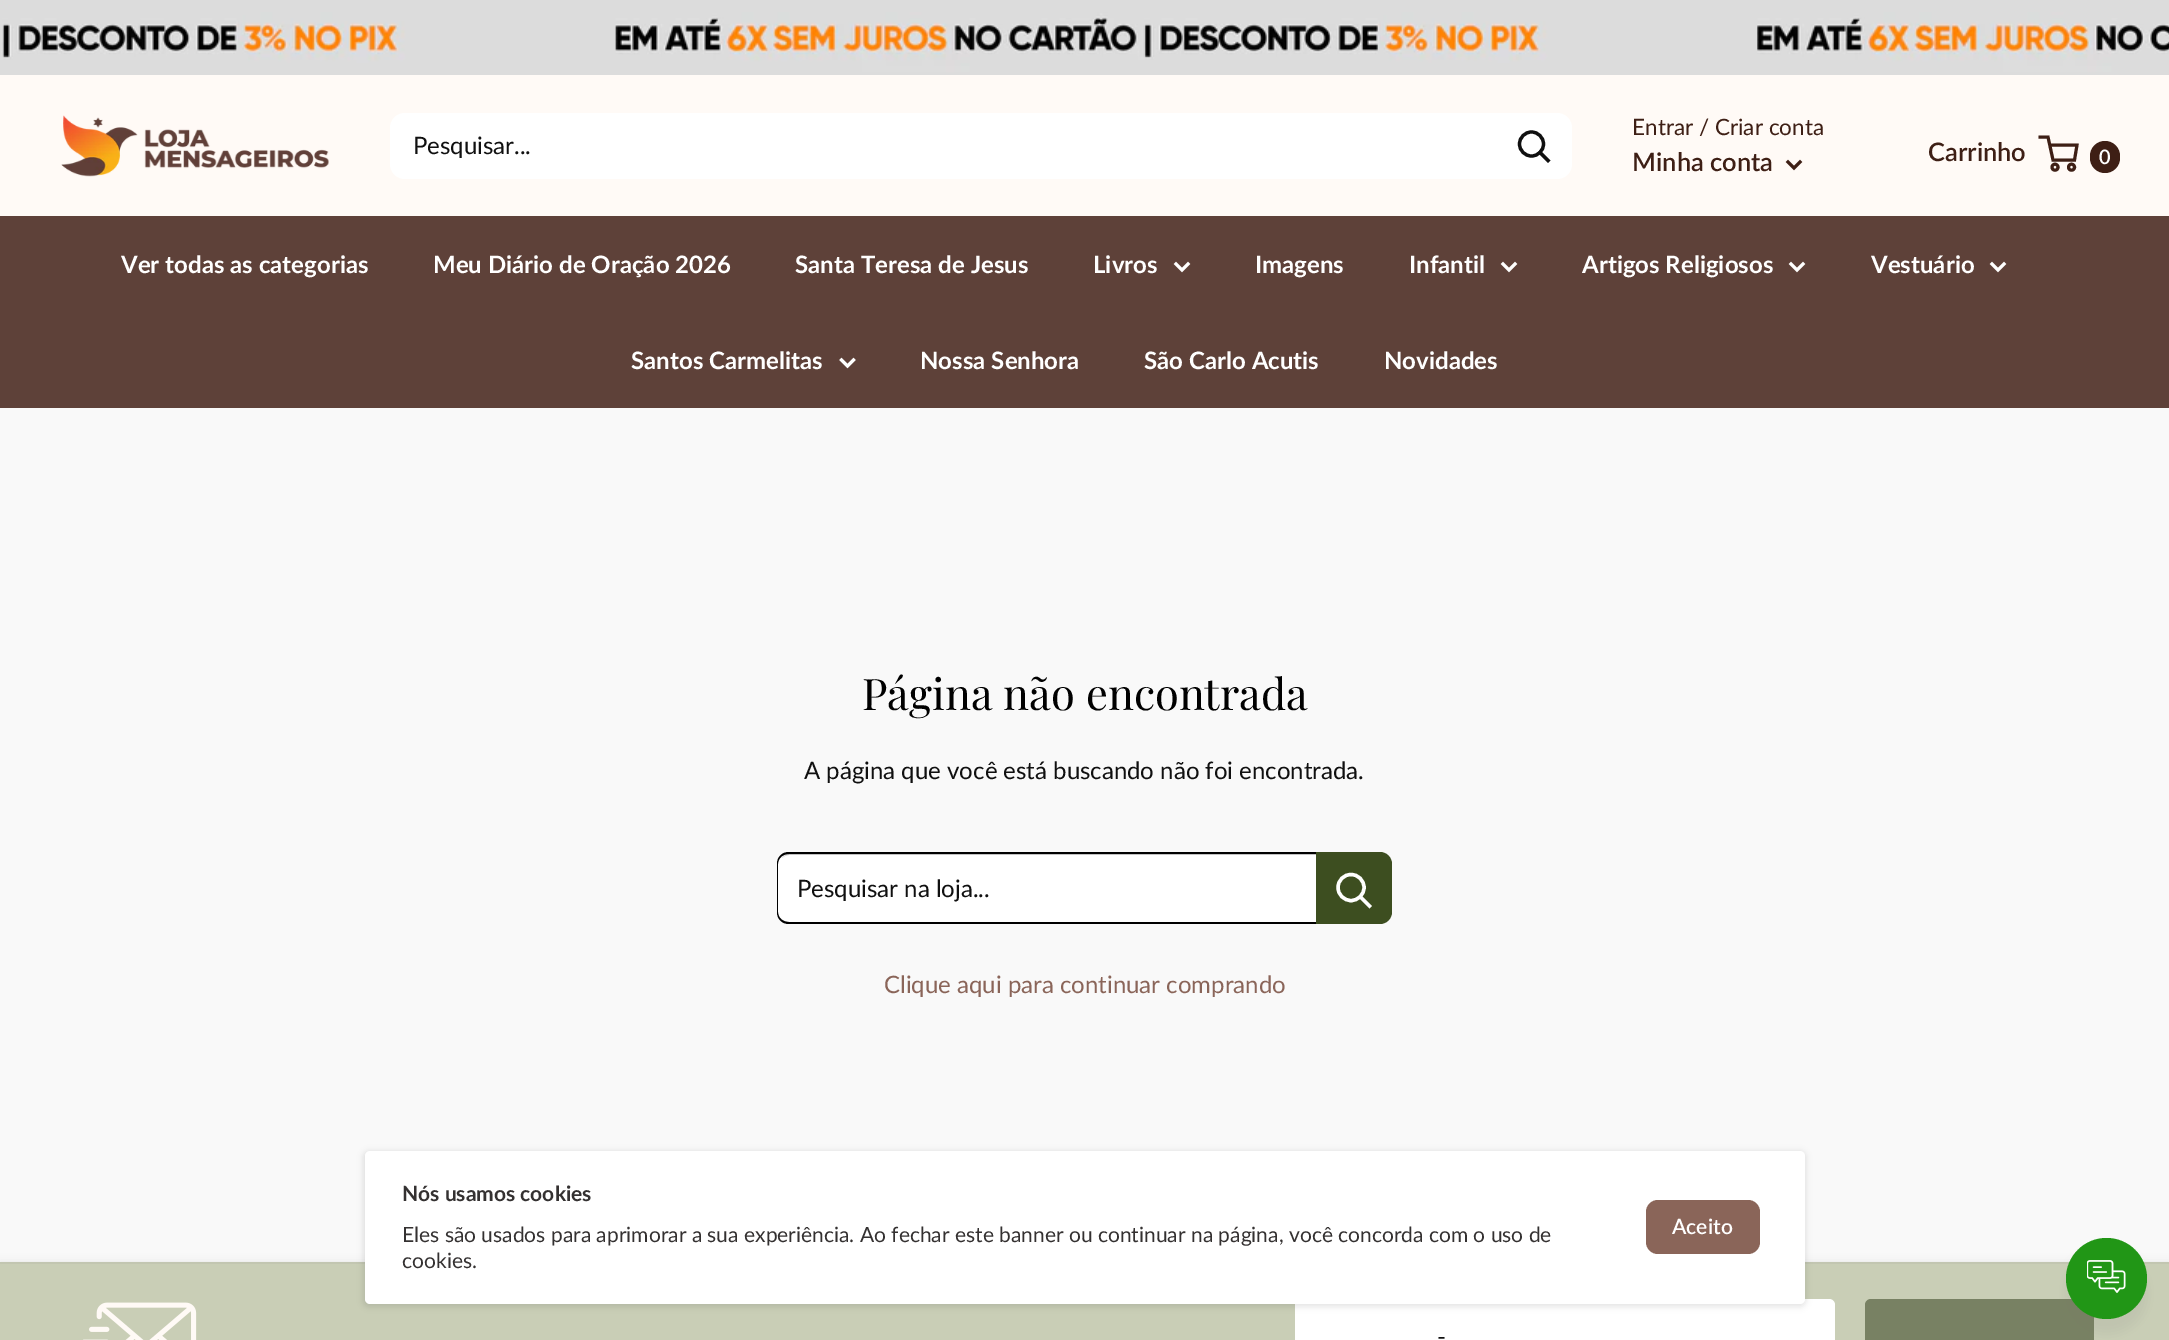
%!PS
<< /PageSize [2169 1340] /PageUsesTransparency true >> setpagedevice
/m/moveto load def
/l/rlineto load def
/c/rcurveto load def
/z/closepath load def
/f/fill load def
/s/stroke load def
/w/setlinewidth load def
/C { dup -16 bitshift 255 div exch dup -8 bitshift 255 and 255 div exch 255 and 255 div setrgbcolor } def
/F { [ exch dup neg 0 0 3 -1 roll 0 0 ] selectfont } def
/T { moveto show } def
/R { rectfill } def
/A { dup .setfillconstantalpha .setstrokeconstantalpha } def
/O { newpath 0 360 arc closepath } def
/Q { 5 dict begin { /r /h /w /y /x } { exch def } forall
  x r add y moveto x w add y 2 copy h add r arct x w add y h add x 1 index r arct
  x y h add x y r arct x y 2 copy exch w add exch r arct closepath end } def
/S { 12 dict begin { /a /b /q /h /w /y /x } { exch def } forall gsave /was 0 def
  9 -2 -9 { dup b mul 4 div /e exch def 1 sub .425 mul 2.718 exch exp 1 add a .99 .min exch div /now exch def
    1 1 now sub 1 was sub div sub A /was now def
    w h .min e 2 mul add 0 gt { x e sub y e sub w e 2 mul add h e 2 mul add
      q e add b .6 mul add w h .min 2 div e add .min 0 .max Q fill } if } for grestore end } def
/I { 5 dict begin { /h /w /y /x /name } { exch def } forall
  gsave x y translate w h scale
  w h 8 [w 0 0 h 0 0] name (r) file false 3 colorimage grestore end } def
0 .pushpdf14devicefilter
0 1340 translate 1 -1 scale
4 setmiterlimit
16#F9F9F9 C
0 0 2169 1340 R
(1.rgb) 0 0 2169 75 I
16#FFFAF6 C
0 75 2169 141 R
(2.rgb) 61 115 268 62 I
16#FFFFFF C
390 113 1182 66 15 Q f
/Lato-Regular 24 F
16#101010 C
(Pesquisar...) 413 154 T
3.2 w
2 setlinecap
1548 160.5 m -8 -8 l s
0 setlinecap
1531.5 144 12 O s
/Lato-Regular 22.5 F
16#3E1F15 C
(Entrar / Criar conta) 1632 135 T
/Lato-SemiBold 25.5 F
(Minha conta) 1632 171 T
3 w
2 setlinecap
1800 162 m -6 6 l -6 -6 l s
(Carrinho) 1928 161 T
0 setlinecap
2055 167.2 3 O s
2071.5 167.2 3 O s
2049.5 145 m 27.5 0 l -2.5 15 l -21.5 0 l -5 -23 l -9.5 0 l s
2090 141 30 32 15 Q f
/Lato-SemiBold 20 F
16#FFFFFF C
(0) 2099 164 T
16#5E4139 C
0 216 2169 192 R
/Lato-Bold 24 F
16#FFFFFF C
(Ver todas as categorias) 121 273 T
(Meu Diário de Oração 2026) 433 273 T
(Santa Teresa de Jesus) 795 273 T
(Livros) 1093 273 T
2 setlinecap
1188 264 m -6 6 l -6 -6 l s
(Imagens) 1255 273 T
(Infantil) 1409 273 T
1515 264 m -6 6 l -6 -6 l s
(Artigos Religiosos) 1582 273 T
1803 264 m -6 6 l -6 -6 l s
(Vestuário) 1871 273 T
2004 264 m -6 6 l -6 -6 l s
(Santos Carmelitas) 631 369 T
853.5 360 m -6 6 l -6 -6 l s
(Nossa Senhora) 920 369 T
(São Carlo Acutis) 1144 369 T
(Novidades) 1384 369 T
/PlayfairDisplay-Regular 43.5 F
16#000000 C
(Página não encontrada) 862 710 T
/Lato-Regular 24 F
16#101010 C
(A página que você está buscando não foi encontrada.) 804 779 T
16#FFFFFF C
789 852 m 527 0 l 0 72 l -527 0 l -6.5 0 -12 -5.5 -12 -12 c 0 -48 l 0 -6.5 5.5 -12 12 -12 c z f
16#C1C1C1 C
789 855 m 527 0 l 0 -1 l -526 0 l -3 0 -6 2 -8 4 c 2 -2 4 -3 7 -3 c z f
16#000000 C
789 852 m 527 0 l 0 72 l -527 0 l -7 0 -12 -5 -12 -12 c 0 -48 l 0 -7 5 -12 12 -12 c z 789 854 m 527 0 l 0 68 l -527 0 l -6 0 -11 -4 -11 -10 c 0 -48 l 0 -6 5 -10 11 -10 c z eofill
16#101010 C
(Pesquisar na loja...) 797 897 T
16#3D4E20 C
1316 852 m 64 0 l 6.5 0 12 5.5 12 12 c 0 48 l 0 6.5 -5.5 12 -12 12 c -64 0 l z f
16#FFFFFF C
3.4 w
1369.5 906 m -9 -9 l s
0 setlinecap
1351 887.5 13 O s
16#8A6559 C
(Clique aqui para continuar comprando) 884 993 T
16#9E9E9E C
0 1262 2169 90 0 4 .2 S
16#C9CEB6 C
0 1264 2169 76 R
16#C2C6B1 C
0 1262 2169 2 R
16#FFFFFF C
1295 1299 540 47 6 Q f
16#000000 C
363 1151 1443 156 6 3 .1 S
16#FFFFFF C
365 1151 1440 153 5 Q f
/Lato-Bold 21 F
16#343131 C
(Nós usamos cookies) 402 1201 T
/Lato-Regular 21 F
(Eles são usados para aprimorar a sua experiência. Ao fechar este banner ou continuar na página, você concorda com o uso de) 402 1242 T
(cookies.) 402 1268 T
16#8A6559 C
1646 1200 114 54 12 Q f
/Lato-SemiBold 21 F
16#FFFFFF C
(Aceito) 1672 1234 T
16#788163 C
1865 1299 229 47 6 Q f
16#676767 C
2066 1253 81 81 40.5 6 .1 S
16#219616 C
2106.5 1278.5 40.5 O f
(3.rgb) 2087 1260 39 33 I
(4.rgb) 83 1302 114 38 I
/Lato-Regular 24 F
16#101010 C
(-) 1437 1345 T
.poppdf14devicefilter showpage
